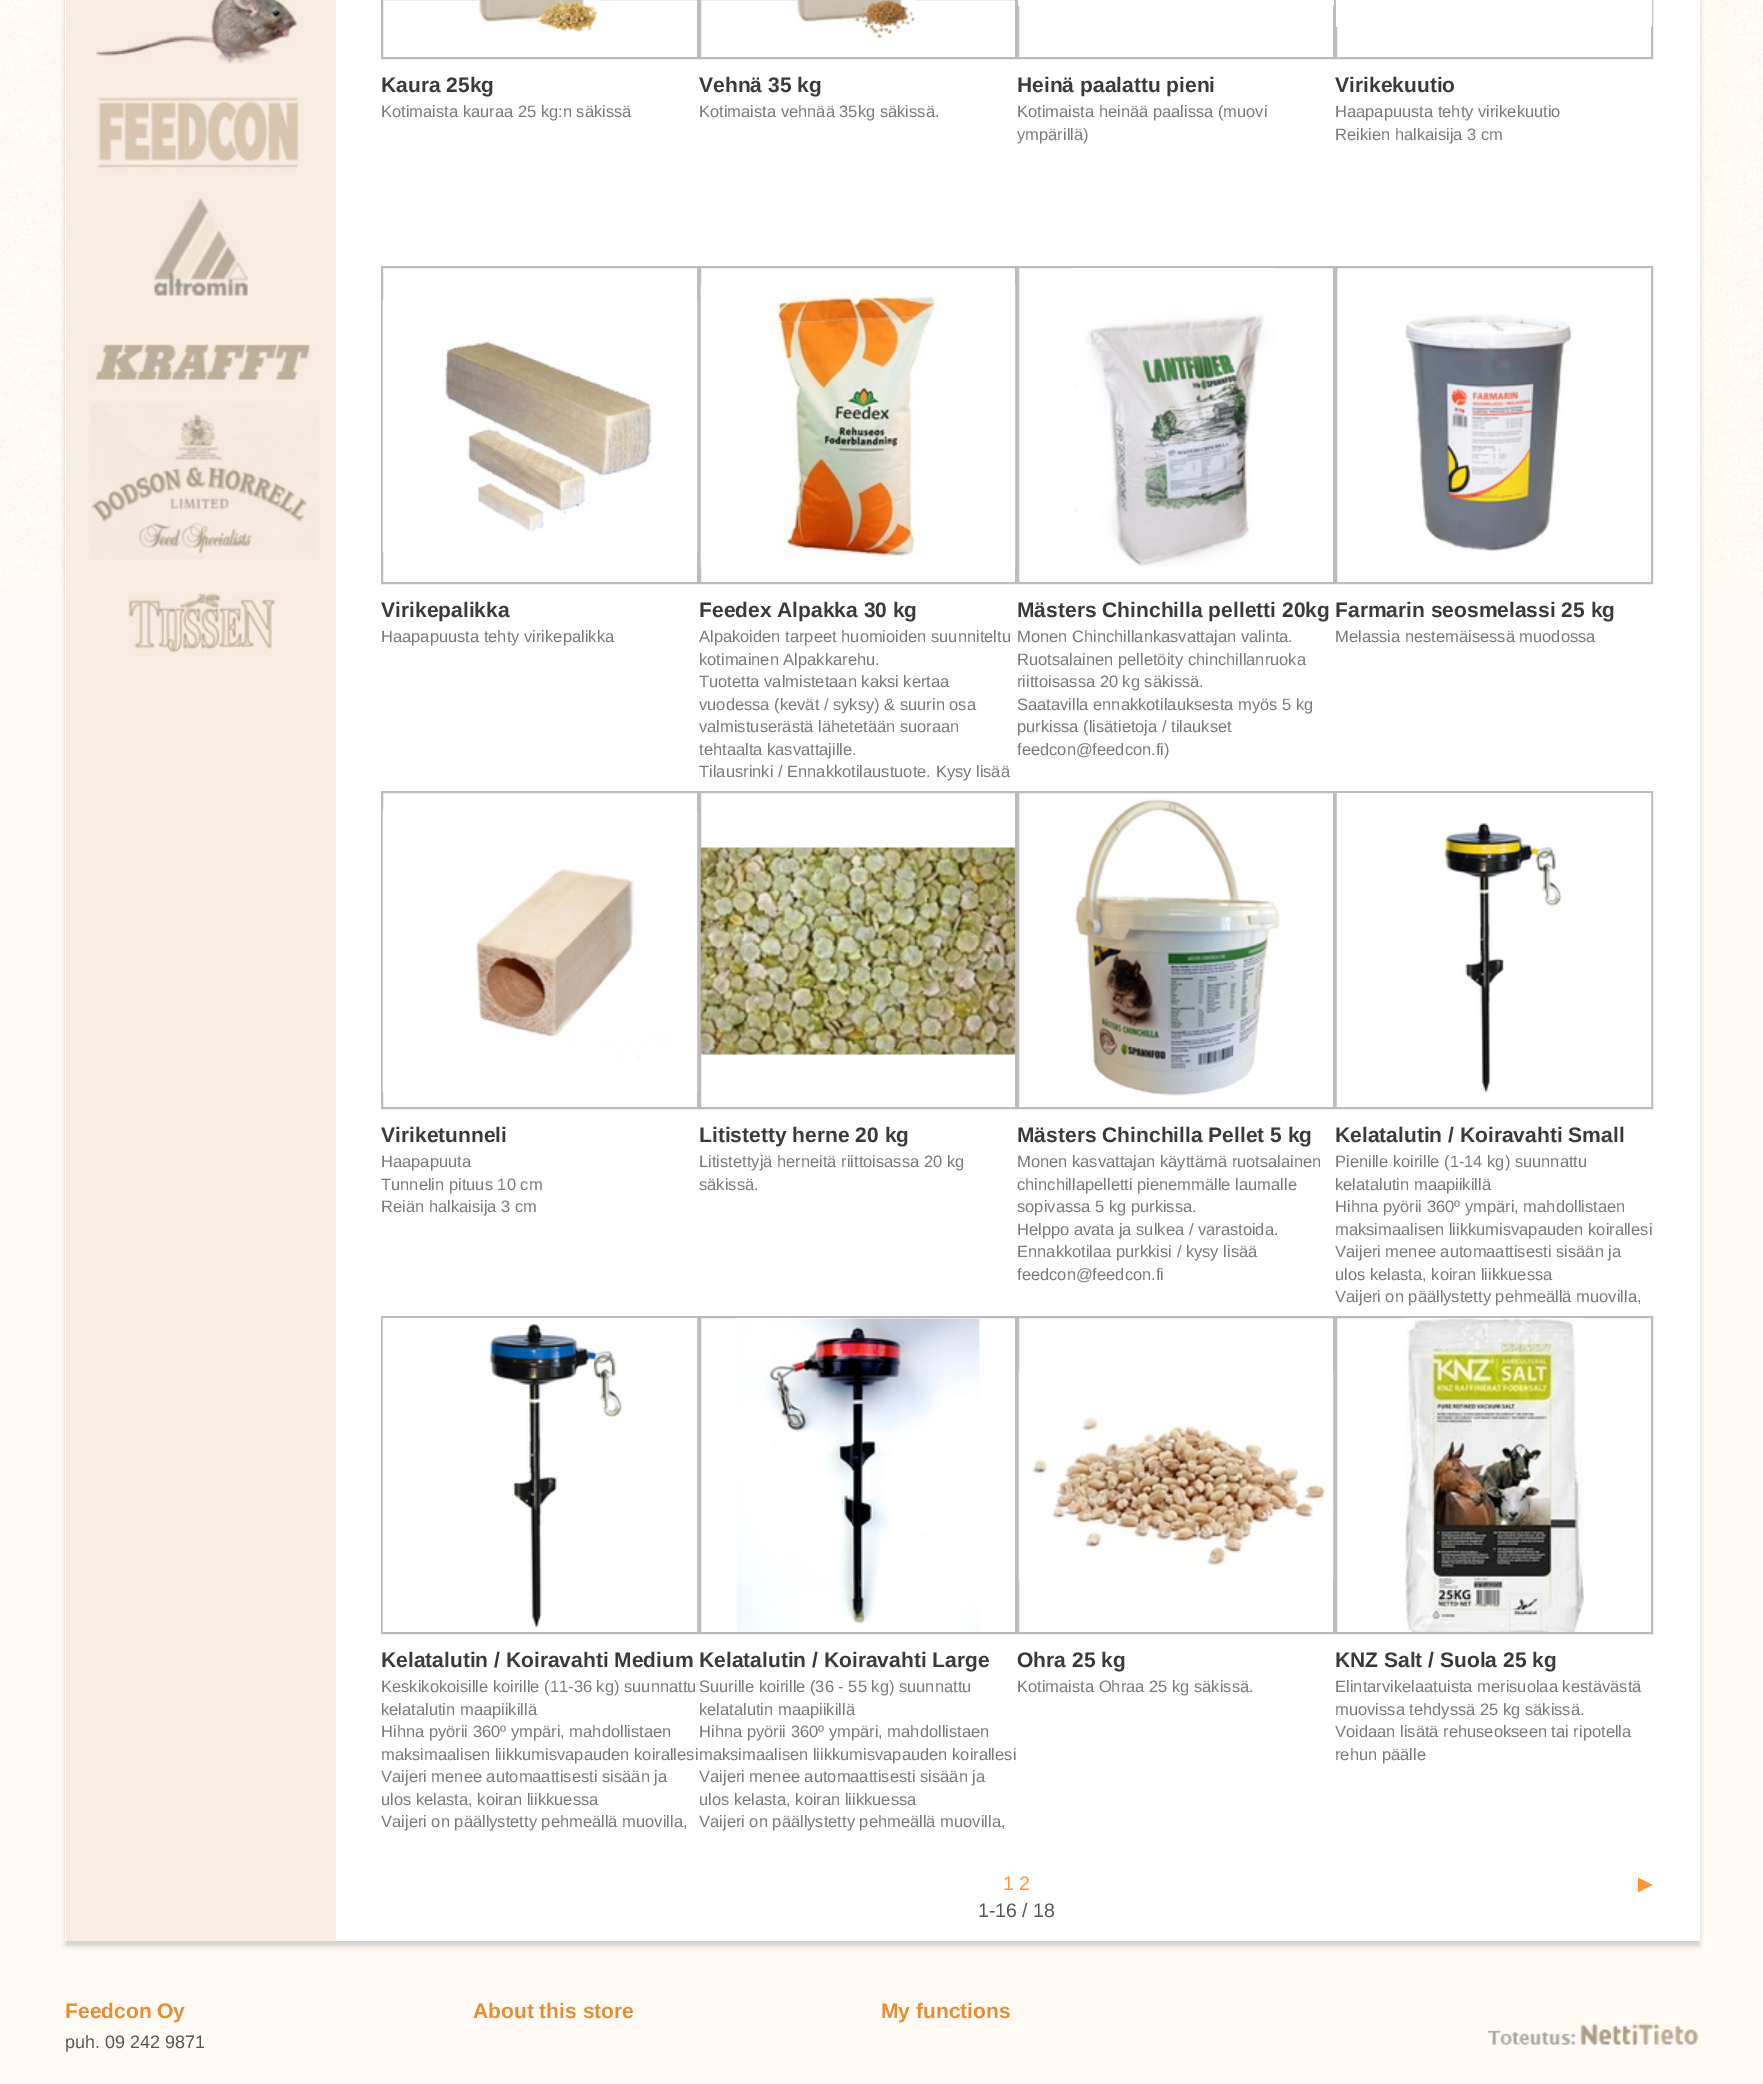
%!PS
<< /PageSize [1763 2084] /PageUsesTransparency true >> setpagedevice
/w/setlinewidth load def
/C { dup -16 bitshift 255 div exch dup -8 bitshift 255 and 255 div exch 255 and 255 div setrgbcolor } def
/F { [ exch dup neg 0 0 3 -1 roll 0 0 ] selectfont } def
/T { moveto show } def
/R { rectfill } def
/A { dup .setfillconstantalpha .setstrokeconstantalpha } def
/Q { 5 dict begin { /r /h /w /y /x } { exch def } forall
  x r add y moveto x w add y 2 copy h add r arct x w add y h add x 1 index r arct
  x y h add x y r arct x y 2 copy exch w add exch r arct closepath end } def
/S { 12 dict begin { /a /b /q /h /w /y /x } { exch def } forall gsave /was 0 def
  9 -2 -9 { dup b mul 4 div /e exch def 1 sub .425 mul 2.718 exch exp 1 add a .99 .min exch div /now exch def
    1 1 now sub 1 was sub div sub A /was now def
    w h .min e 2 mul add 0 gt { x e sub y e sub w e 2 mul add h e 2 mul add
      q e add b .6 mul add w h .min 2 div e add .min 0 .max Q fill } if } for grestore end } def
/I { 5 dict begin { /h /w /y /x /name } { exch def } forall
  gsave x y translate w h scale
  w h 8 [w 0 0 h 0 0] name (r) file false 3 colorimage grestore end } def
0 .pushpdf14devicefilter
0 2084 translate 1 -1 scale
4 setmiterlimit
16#FFFAF3 C
0 0 1763 2084 R
(1.rgb) 0 0 1763 598 I
16#323232 C
65 -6 1635 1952 0 2 .2 S
16#FFFFFF C
65 0 1635 1941 R
16#F6ECE2 C
66 0 270 1941 R
(2.rgb) 95 0 203 64 I
(3.rgb) 97 97 203 74 I
(4.rgb) 152 197 96 101 I
(5.rgb) 91 342 227 217 I
(6.rgb) 128 590 149 67 I
16#C0BBBB C
2 w
382 -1 316 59 rectstroke
(7.rgb) 478 0 121 32 I
/LiberationSans-Bold 21 F
16#3A3A3A C
(Kaura 25kg) 381 92 T
/LiberationSans-Regular 16.5 F
16#7A7A7A C
(Kotimaista kauraa 25 kg:n säkissä) 381 117 T
16#C0BBBB C
700 -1 316 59 rectstroke
(8.rgb) 796 0 120 38 I
/LiberationSans-Bold 21 F
16#3A3A3A C
(Vehnä 35 kg) 699 92 T
/LiberationSans-Regular 16.5 F
16#7A7A7A C
(Kotimaista vehnää 35kg säkissä.) 699 117 T
16#C0BBBB C
1018 -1 316 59 rectstroke
16#FFFFFF C
1018 0 316 6 R
/LiberationSans-Bold 21 F
16#3A3A3A C
(Heinä paalattu pieni) 1017 92 T
/LiberationSans-Regular 16.5 F
16#7A7A7A C
(Kotimaista heinää paalissa \(muovi) 1017 117 T
(ympärillä\)) 1017 140 T
16#C0BBBB C
1336 -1 316 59 rectstroke
16#FFFFFF C
1336 0 316 27 R
/LiberationSans-Bold 21 F
16#3A3A3A C
(Virikekuutio) 1335 92 T
/LiberationSans-Regular 16.5 F
16#7A7A7A C
(Haapapuusta tehty virikekuutio) 1335 117 T
(Reikien halkaisija 3 cm) 1335 140 T
16#C0BBBB C
382 267 316 316 rectstroke
(9.rgb) 382 300 316 252 I
/LiberationSans-Bold 21 F
16#3A3A3A C
(Virikepalikka) 381 617 T
/LiberationSans-Regular 16.5 F
16#7A7A7A C
(Haapapuusta tehty virikepalikka) 381 642 T
16#C0BBBB C
700 267 316 316 rectstroke
(10.rgb) 700 285 316 282 I
/LiberationSans-Bold 21 F
16#3A3A3A C
(Feedex Alpakka 30 kg) 699 617 T
/LiberationSans-Regular 16.5 F
16#7A7A7A C
(Alpakoiden tarpeet huomioiden suunniteltu) 699 642 T
(kotimainen Alpakkarehu.) 699 665 T
(Tuotetta valmistetaan kaksi kertaa) 699 687 T
(vuodessa \(kevät / syksy\) & suurin osa) 699 710 T
(valmistuserästä lähetetään suoraan) 699 732 T
(tehtaalta kasvattajille.) 699 755 T
(Tilausrinki / Ennakkotilaustuote. Kysy lisää) 699 777 T
16#C0BBBB C
1018 267 316 316 rectstroke
(11.rgb) 1071 268 205 299 I
/LiberationSans-Bold 21 F
16#3A3A3A C
(Mästers Chinchilla pelletti 20kg) 1017 617 T
/LiberationSans-Regular 16.5 F
16#7A7A7A C
(Monen Chinchillankasvattajan valinta.) 1017 642 T
(Ruotsalainen pelletöity chinchillanruoka) 1017 665 T
(riittoisassa 20 kg säkissä.) 1017 687 T
(Saatavilla ennakkotilauksesta myös 5 kg) 1017 710 T
(purkissa \(lisätietoja / tilaukset) 1017 732 T
(feedcon@feedcon.fi\)) 1017 755 T
16#C0BBBB C
1336 267 316 316 rectstroke
(12.rgb) 1405 314 167 237 I
/LiberationSans-Bold 21 F
16#3A3A3A C
(Farmarin seosmelassi 25 kg) 1335 617 T
/LiberationSans-Regular 16.5 F
16#7A7A7A C
(Melassia nestemäisessä muodossa) 1335 642 T
16#C0BBBB C
382 792 316 316 rectstroke
(13.rgb) 382 811 316 281 I
/LiberationSans-Bold 21 F
16#3A3A3A C
(Viriketunneli) 381 1142 T
/LiberationSans-Regular 16.5 F
16#7A7A7A C
(Haapapuuta) 381 1167 T
(Tunnelin pituus 10 cm) 381 1190 T
(Reiän halkaisija 3 cm) 381 1212 T
16#C0BBBB C
700 792 316 316 rectstroke
(14.rgb) 700 847 316 208 I
/LiberationSans-Bold 21 F
16#3A3A3A C
(Litistetty herne 20 kg) 699 1142 T
/LiberationSans-Regular 16.5 F
16#7A7A7A C
(Litistettyjä herneitä riittoisassa 20 kg) 699 1167 T
(säkissä.) 699 1190 T
16#C0BBBB C
1018 792 316 316 rectstroke
(15.rgb) 1075 799 205 297 I
/LiberationSans-Bold 21 F
16#3A3A3A C
(Mästers Chinchilla Pellet 5 kg) 1017 1142 T
/LiberationSans-Regular 16.5 F
16#7A7A7A C
(Monen kasvattajan käyttämä ruotsalainen) 1017 1167 T
(chinchillapelletti pienemmälle laumalle) 1017 1190 T
(sopivassa 5 kg purkissa.) 1017 1212 T
(Helppo avata ja sulkea / varastoida.) 1017 1235 T
(Ennakkotilaa purkkisi / kysy lisää) 1017 1257 T
(feedcon@feedcon.fi) 1017 1280 T
16#C0BBBB C
1336 792 316 316 rectstroke
(16.rgb) 1336 793 316 314 I
/LiberationSans-Bold 21 F
16#3A3A3A C
(Kelatalutin / Koiravahti Small) 1335 1142 T
/LiberationSans-Regular 16.5 F
16#7A7A7A C
(Pienille koirille \(1-14 kg\) suunnattu) 1335 1167 T
(kelatalutin maapiikillä) 1335 1190 T
(Hihna pyörii 360º ympäri, mahdollistaen) 1335 1212 T
(maksimaalisen liikkumisvapauden koirallesi) 1335 1235 T
(Vaijeri menee automaattisesti sisään ja) 1335 1257 T
(ulos kelasta, koiran liikkuessa) 1335 1280 T
(Vaijeri on päällystetty pehmeällä muovilla,) 1335 1302 T
16#C0BBBB C
382 1317 316 316 rectstroke
(17.rgb) 382 1318 316 314 I
/LiberationSans-Bold 21 F
16#3A3A3A C
(Kelatalutin / Koiravahti Medium) 381 1667 T
/LiberationSans-Regular 16.5 F
16#7A7A7A C
(Keskikokoisille koirille \(11-36 kg\) suunnattu) 381 1692 T
(kelatalutin maapiikillä) 381 1715 T
(Hihna pyörii 360º ympäri, mahdollistaen) 381 1737 T
(maksimaalisen liikkumisvapauden koirallesi) 381 1760 T
(Vaijeri menee automaattisesti sisään ja) 381 1782 T
(ulos kelasta, koiran liikkuessa) 381 1805 T
(Vaijeri on päällystetty pehmeällä muovilla,) 381 1827 T
16#C0BBBB C
700 1317 316 316 rectstroke
(18.rgb) 736 1318 244 314 I
/LiberationSans-Bold 21 F
16#3A3A3A C
(Kelatalutin / Koiravahti Large) 699 1667 T
/LiberationSans-Regular 16.5 F
16#7A7A7A C
(Suurille koirille \(36 - 55 kg\) suunnattu) 699 1692 T
(kelatalutin maapiikillä) 699 1715 T
(Hihna pyörii 360º ympäri, mahdollistaen) 699 1737 T
(maksimaalisen liikkumisvapauden koirallesi) 699 1760 T
(Vaijeri menee automaattisesti sisään ja) 699 1782 T
(ulos kelasta, koiran liikkuessa) 699 1805 T
(Vaijeri on päällystetty pehmeällä muovilla,) 699 1827 T
16#C0BBBB C
1018 1317 316 316 rectstroke
(19.rgb) 1018 1371 316 210 I
/LiberationSans-Bold 21 F
16#3A3A3A C
(Ohra 25 kg) 1017 1667 T
/LiberationSans-Regular 16.5 F
16#7A7A7A C
(Kotimaista Ohraa 25 kg säkissä.) 1017 1692 T
16#C0BBBB C
1336 1317 316 316 rectstroke
(20.rgb) 1405 1318 179 314 I
/LiberationSans-Bold 21 F
16#3A3A3A C
(KNZ Salt / Suola 25 kg) 1335 1667 T
/LiberationSans-Regular 16.5 F
16#7A7A7A C
(Elintarvikelaatuista merisuolaa kestävästä) 1335 1692 T
(muovissa tehdyssä 25 kg säkissä.) 1335 1715 T
(Voidaan lisätä rehuseokseen tai ripotella) 1335 1737 T
(rehun päälle) 1335 1760 T
/LiberationSans-Regular 19.5 F
16#FF962C C
(1 2) 1003 1890 T
16#555555 C
(1-16 / 18) 978 1917 T
/DejaVuSans-Regular 19.5 F
16#FF962C C
(▶) 1638 1890 T
/LiberationSans-Bold 21 F
16#E58D34 C
(Feedcon Oy) 65 2018 T
/LiberationSans-Regular 18 F
16#555555 C
(puh. 09 242 9871) 65 2048 T
/LiberationSans-Bold 21 F
16#E58D34 C
(About this store) 473 2018 T
(My functions) 881 2018 T
(21.rgb) 1488 2023 211 22 I
.poppdf14devicefilter showpage
